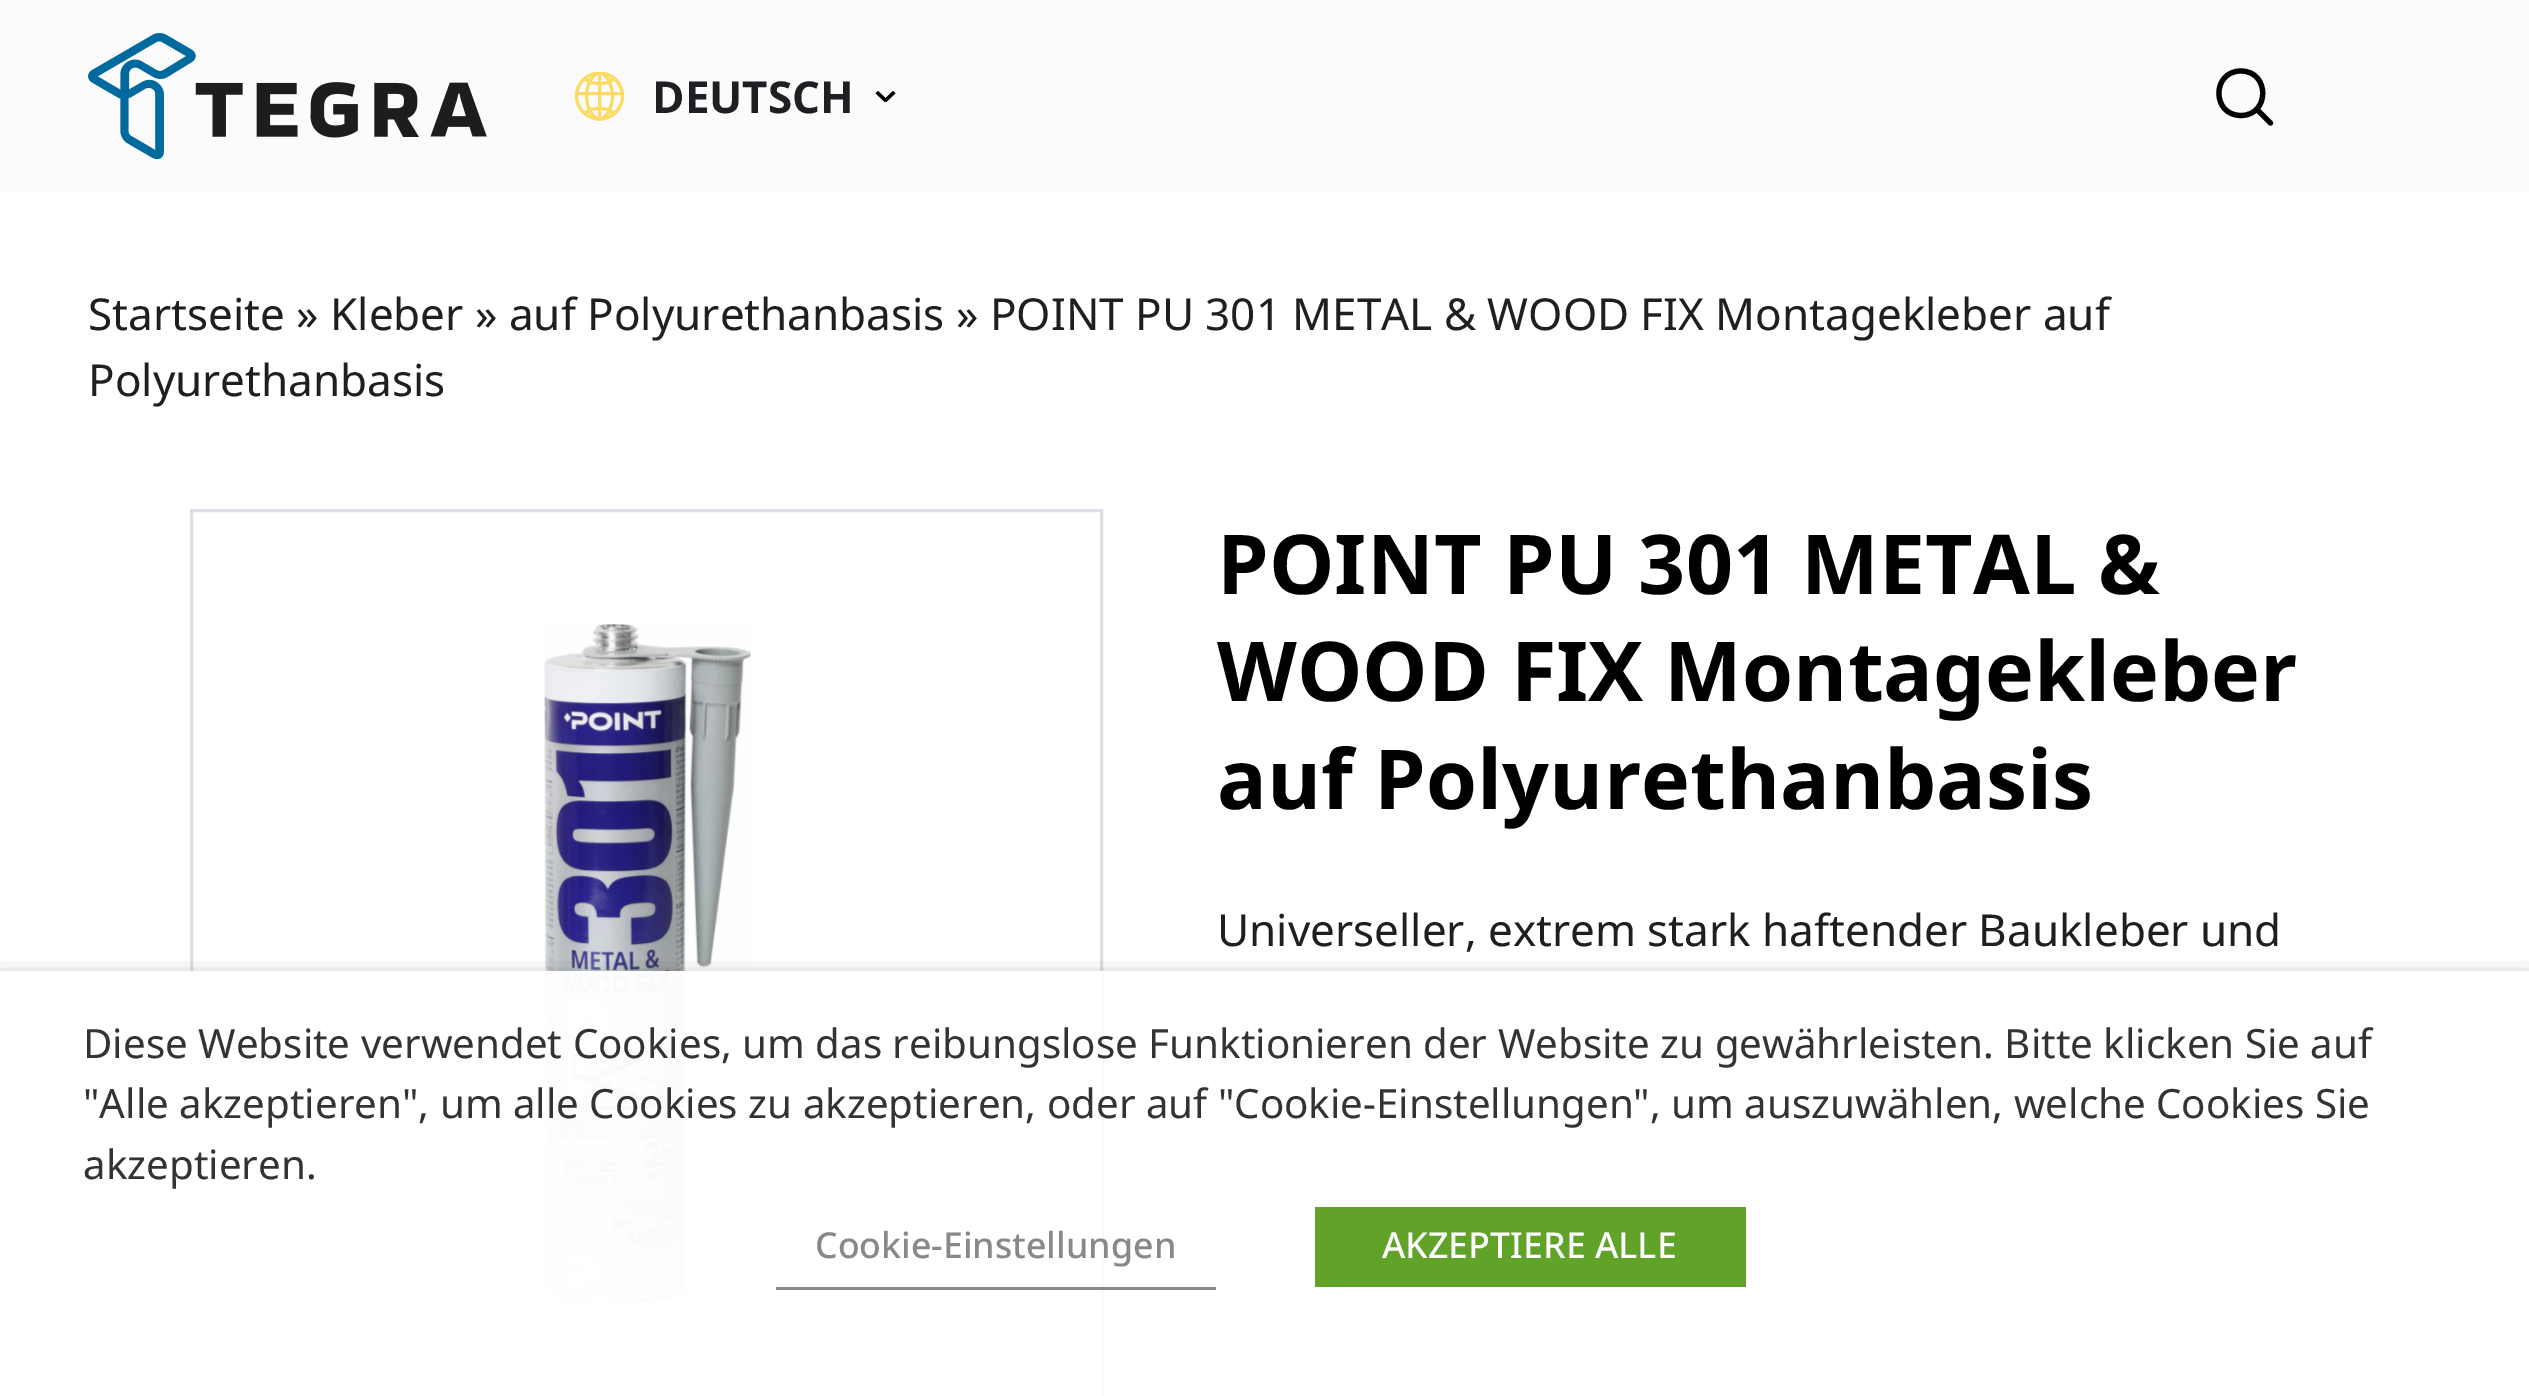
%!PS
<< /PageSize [2529 1396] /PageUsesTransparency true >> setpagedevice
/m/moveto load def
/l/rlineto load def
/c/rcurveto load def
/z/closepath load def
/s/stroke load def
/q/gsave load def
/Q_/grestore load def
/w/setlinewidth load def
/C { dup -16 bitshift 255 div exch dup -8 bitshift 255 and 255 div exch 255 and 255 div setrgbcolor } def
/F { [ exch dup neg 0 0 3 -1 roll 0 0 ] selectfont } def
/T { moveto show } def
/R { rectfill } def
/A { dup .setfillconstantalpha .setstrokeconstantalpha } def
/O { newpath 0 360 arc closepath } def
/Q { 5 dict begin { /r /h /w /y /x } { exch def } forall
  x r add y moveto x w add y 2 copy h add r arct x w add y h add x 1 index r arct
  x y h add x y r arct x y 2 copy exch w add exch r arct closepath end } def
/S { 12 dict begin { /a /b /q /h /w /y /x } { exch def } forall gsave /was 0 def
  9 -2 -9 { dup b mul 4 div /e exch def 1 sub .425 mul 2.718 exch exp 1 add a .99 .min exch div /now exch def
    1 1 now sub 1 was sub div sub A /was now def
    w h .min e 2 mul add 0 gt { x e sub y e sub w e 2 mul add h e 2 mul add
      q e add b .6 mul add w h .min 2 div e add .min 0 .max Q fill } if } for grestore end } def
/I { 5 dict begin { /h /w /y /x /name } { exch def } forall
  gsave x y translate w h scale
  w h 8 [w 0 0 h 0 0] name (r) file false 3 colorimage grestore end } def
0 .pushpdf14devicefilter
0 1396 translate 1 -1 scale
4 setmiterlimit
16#FFFFFF C
0 0 2529 1396 R
16#FBFBFB C
0 0 2529 193 R
(1.rgb) 88 33 399 127 I
q
575 72 49 49 rectclip
16#FBDB65 C
3.1 w
599.5 96 23 O s
Q_
16#FBDB65 C
3.1 w
615 78 m -9 8 -22 8 -31 0 c 615 114 m -9 -8 -22 -8 -31 0 c s
q
575 72 49 49 rectclip
599.5 73 m 7 0 13 10.5 13 23 c 0 12.5 -6 23 -13 23 c -7 0 -13 -10.5 -13 -23 c 0 -12.5 6 -23 13 -23 c z s
1 setlinecap
599.5 73 m 0 44 l s
Q_
1 setlinecap
622.5 93.5 m -46 0 l s
(2.rgb) 875 91 21 11 I
/NotoSans-Bold 44 F
16#1F1E22 C
(DEUTSCH) 652 113 T
16#020202 C
5.2 w
1 setlinejoin
2270.5 123 m -14 -14 l 2241 71 m 29 0 29 44.5 0 44.5 c -29.5 0 -29.5 -44.5 0 -44.5 c z s
/NotoSans-Regular 44 F
16#1F1E22 C
(Startseite » Kleber » auf Polyurethanbasis » POINT PU 301 METAL & WOOD FIX Montagekleber auf) 88 330 T
(Polyurethanbasis) 88 396 T
16#DDDFE7 C
3 w
0 setlinecap
0 setlinejoin
191.5 510.5 910 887 rectstroke
(3.rgb) 543 624 208 682 I
/NotoSans-Bold 82.5 F
16#000000 C
(POINT PU 301 METAL &) 1217 594 T
(WOOD FIX Montagekleber) 1217 701 T
(auf Polyurethanbasis) 1217 809 T
/NotoSans-Regular 44 F
16#1F1E22 C
(Universeller, extrem stark haftender Baukleber und) 1217 946 T
q
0 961 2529 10 rectclip
16#000000 C
0 985 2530 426 0 14 .5 S
Q_
0.97 A
16#FFFFFF C
190 971 913 425 R
/NotoSans-Regular 40.33 F
1 A
16#333333 C
(Diese Website verwendet Cookies, um das reibungslose Funktionieren der Website zu gewährleisten. Bitte klicken Sie auf) 83 1058 T
("Alle akzeptieren", um alle Cookies zu akzeptieren, oder auf "Cookie-Einstellungen", um auszuwählen, welche Cookies Sie) 83 1118 T
(akzeptieren.) 83 1179 T
16#898888 C
776 1287 440 3 R
/NotoSans-Medium 35.75 F
(Cookie-Einstellungen) 815 1258 T
16#61A229 C
1315 1207 431 80 R
16#FFFFFF C
(AKZEPTIERE ALLE) 1382 1258 T
.poppdf14devicefilter showpage
